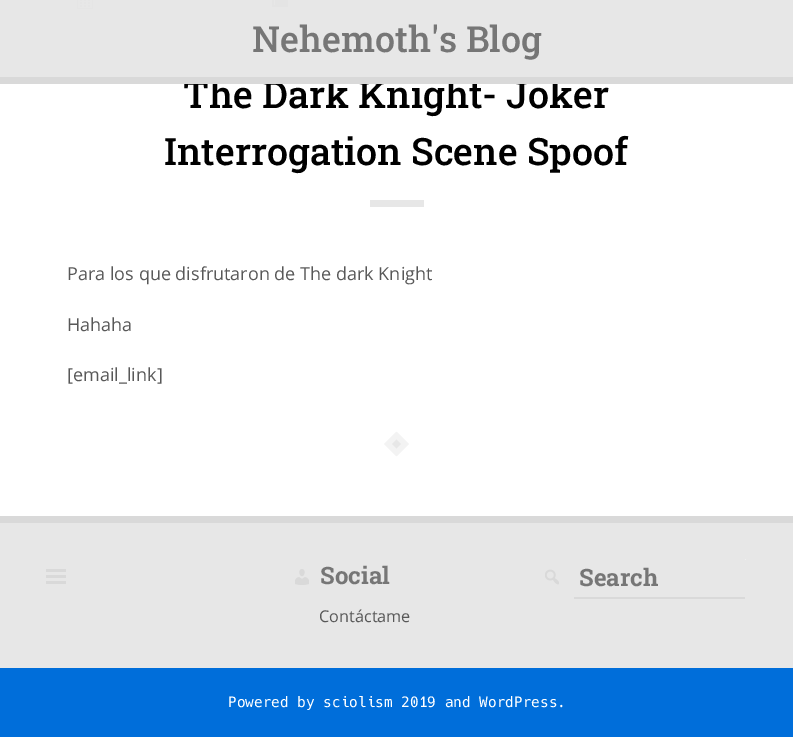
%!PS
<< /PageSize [793 737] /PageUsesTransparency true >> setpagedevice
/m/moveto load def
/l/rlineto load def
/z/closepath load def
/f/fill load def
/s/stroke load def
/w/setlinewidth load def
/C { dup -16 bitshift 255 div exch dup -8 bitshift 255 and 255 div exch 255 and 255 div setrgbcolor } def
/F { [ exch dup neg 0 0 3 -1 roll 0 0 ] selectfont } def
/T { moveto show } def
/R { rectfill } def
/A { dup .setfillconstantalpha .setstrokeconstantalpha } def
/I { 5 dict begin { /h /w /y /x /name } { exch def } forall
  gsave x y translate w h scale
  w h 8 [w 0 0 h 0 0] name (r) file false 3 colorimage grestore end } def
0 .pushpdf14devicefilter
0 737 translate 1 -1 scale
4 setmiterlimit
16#FFFFFF C
0 0 793 737 R
(1.rgb) 77 0 16 9 I
(2.rgb) 272 0 16 7 I
/RobotoSlab-Medium 37.75 F
16#000000 C
(The Dark Knight- Joker) 183 108 T
0.98 A
16#E7E7E7 C
0 0 793 84 R
16#D9D9D9 C
0 77 793 7 R
/RobotoSlab-Medium 36 F
1 A
16#767676 C
(Nehemoth's Blog) 252 52 T
/RobotoSlab-Medium 37.75 F
16#000000 C
(Interrogation Scene Spoof) 164 165 T
16#E7E7E7 C
370 200 54 7 R
/OpenSans-Regular 18 F
16#585858 C
(Para los que disfrutaron de The dark Knight) 67 280 T
(Hahaha) 67 331 T
([email_link]) 67 381 T
16#E7E7E7 C
396.5 432 m 12 12 l -12 12 l -12 -12 l z f
16#F3F3F3 C
5 w
396.5 435.5 m 8.5 8.5 l -8.5 8.5 l -8.5 -8.5 l z s
16#E7E7E7 C
0 523 793 145 R
16#D9D9D9 C
0 516 793 7 R
(3.rgb) 46 569 20 15 I
(4.rgb) 295 569 14 16 I
/RobotoSlab-Bold 24 F
16#767676 C
(Social) 320 584 T
/OpenSans-Regular 16.25 F
16#585858 C
(Contáctame) 319 622 T
16#EFEFEF C
745 559 1 1 R
(5.rgb) 545 569 14 16 I
16#D9D9D9 C
574 597 171 2 R
/RobotoSlab-Bold 24 F
16#767676 C
(Search) 579 586 T
16#006EDA C
0 668 793 69 R
/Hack-Regular 14.4 F
16#FFFFFF C
(Powered by sciolism 2019 and WordPress.) 228 707 T
.poppdf14devicefilter showpage
